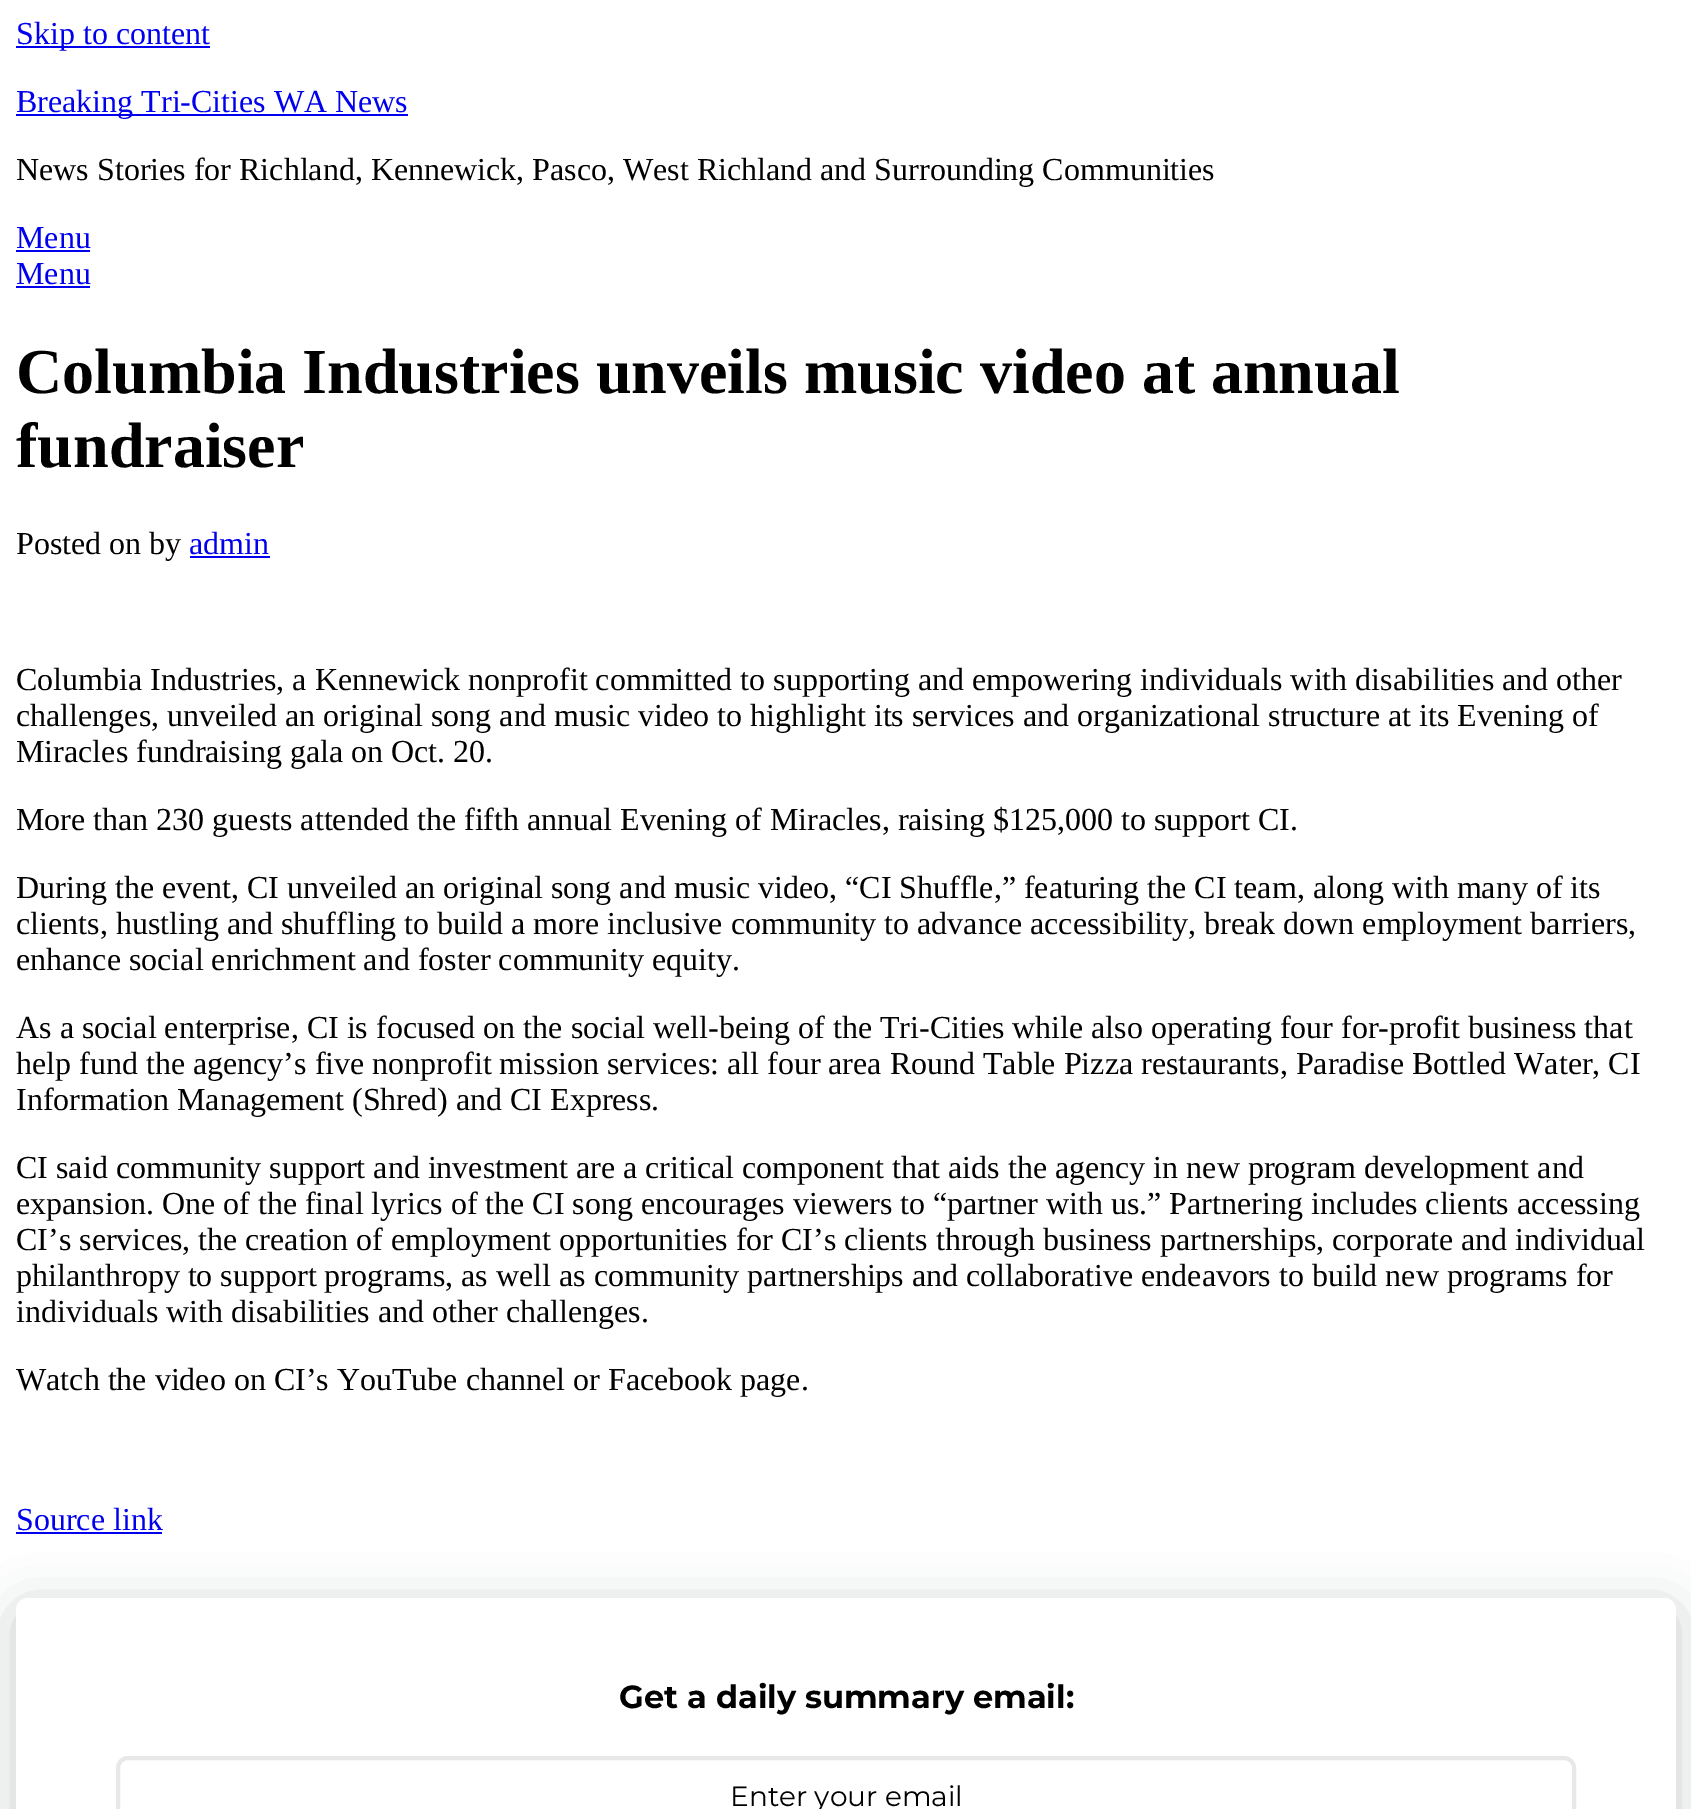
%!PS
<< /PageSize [1691 1809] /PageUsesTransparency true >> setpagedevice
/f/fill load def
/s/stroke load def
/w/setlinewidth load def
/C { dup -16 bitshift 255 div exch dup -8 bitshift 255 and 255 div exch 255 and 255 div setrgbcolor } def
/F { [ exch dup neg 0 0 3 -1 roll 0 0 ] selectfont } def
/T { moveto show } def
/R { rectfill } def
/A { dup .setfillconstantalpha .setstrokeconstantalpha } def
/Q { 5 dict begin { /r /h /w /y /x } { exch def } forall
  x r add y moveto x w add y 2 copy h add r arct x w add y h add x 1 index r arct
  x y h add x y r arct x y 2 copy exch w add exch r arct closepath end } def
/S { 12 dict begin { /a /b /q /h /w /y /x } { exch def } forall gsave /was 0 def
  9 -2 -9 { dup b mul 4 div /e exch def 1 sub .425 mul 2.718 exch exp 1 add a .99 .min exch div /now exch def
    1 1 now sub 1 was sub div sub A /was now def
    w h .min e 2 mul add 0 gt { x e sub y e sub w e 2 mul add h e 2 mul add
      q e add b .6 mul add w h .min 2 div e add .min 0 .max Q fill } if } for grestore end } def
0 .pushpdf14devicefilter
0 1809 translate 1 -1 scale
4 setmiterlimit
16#FFFFFF C
0 0 1691 1809 R
16#0000EE C
16 46 194 2 R
/LiberationSerif-Regular 32 F
(Skip to content) 16 44 T
16 114 392 2 R
(Breaking Tri-Cities WA News) 16 112 T
16#000000 C
(News Stories for Richland, Kennewick, Pasco, West Richland and Surrounding Communities) 16 180 T
16#0000EE C
(Menu) 16 248 T
16 250 74 2 R
(Menu) 16 284 T
16 286 74 2 R
/LiberationSerif-Bold 64 F
16#000000 C
(Columbia Industries unveils music video at annual) 16 393 T
(fundraiser) 16 467 T
/LiberationSerif-Regular 32 F
(Posted on by) 16 554 T
16#0000EE C
(admin) 189 554 T
190 556 80 2 R
16#000000 C
(Columbia Industries, a Kennewick nonprofit committed to supporting and empowering individuals with disabilities and other) 16 690 T
(challenges, unveiled an original song and music video to highlight its services and organizational structure at its Evening of) 16 726 T
(Miracles fundraising gala on Oct. 20.) 16 762 T
(More than 230 guests attended the fifth annual Evening of Miracles, raising $125,000 to support CI.) 16 830 T
(During the event, CI unveiled an original song and music video, “CI Shuffle,” featuring the CI team, along with many of its) 16 898 T
(clients, hustling and shuffling to build a more inclusive community to advance accessibility, break down employment barriers,) 16 934 T
(enhance social enrichment and foster community equity.) 16 970 T
(As a social enterprise, CI is focused on the social well-being of the Tri-Cities while also operating four for-profit business that) 16 1038 T
(help fund the agency’s five nonprofit mission services: all four area Round Table Pizza restaurants, Paradise Bottled Water, CI) 16 1074 T
(Information Management \(Shred\) and CI Express.) 16 1110 T
(CI said community support and investment are a critical component that aids the agency in new program development and) 16 1178 T
(expansion. One of the final lyrics of the CI song encourages viewers to “partner with us.” Partnering includes clients accessing) 16 1214 T
(CI’s services, the creation of employment opportunities for CI’s clients through business partnerships, corporate and individual) 16 1250 T
(philanthropy to support programs, as well as community partnerships and collaborative endeavors to build new programs for) 16 1286 T
(individuals with disabilities and other challenges.) 16 1322 T
(Watch the video on CI’s YouTube channel or Facebook page.) 16 1390 T
16#0000EE C
(Source link) 16 1530 T
16 1532 146 2 R
16#223C2F C
16 1608 1660 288 12 25 .25 S
16#FFFFFF C
16 1598 1660 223 12 Q f
/Montserrat-Thin 32 F
16#000000 C
(Get a daily summary email:) 619 1708 T
16#E9E8E8 C
4 w
118 1758 1456 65 10 Q s
/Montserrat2-Thin 28 F
16#000000 C
(Enter your email) 730 1806 T
.poppdf14devicefilter showpage
